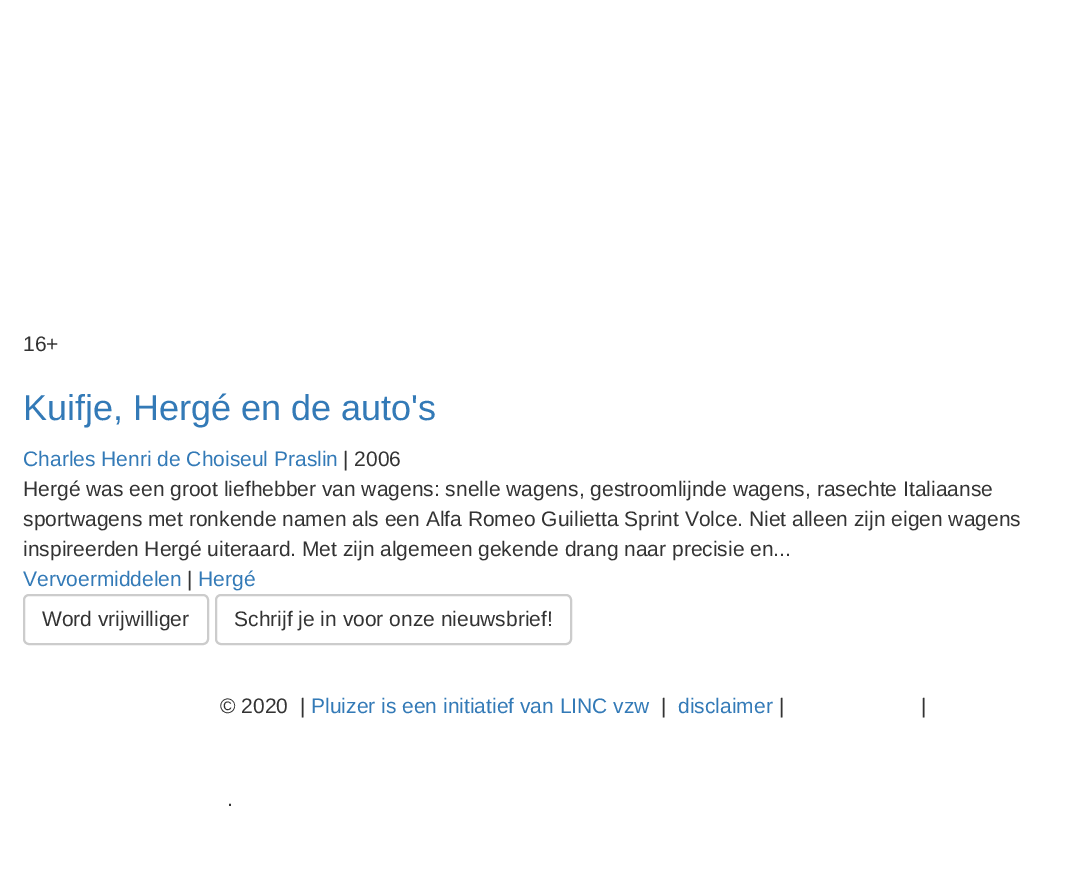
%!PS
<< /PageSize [1082 890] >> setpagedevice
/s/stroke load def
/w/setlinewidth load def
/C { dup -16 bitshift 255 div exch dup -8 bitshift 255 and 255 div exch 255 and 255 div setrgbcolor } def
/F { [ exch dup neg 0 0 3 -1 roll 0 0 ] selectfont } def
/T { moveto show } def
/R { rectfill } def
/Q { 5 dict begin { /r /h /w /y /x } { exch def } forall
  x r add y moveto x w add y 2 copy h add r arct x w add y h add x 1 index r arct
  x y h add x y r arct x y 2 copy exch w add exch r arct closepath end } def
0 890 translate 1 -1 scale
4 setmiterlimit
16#FFFFFF C
0 0 1082 890 R
/LiberationSans-Regular 21 F
16#333333 C
(16+) 23 351 T
/LiberationSans-Regular 36 F
16#337AB7 C
(Kuifje, Hergé en de auto's) 23 420 T
/LiberationSans-Regular 21 F
(Charles Henri de Choiseul Praslin) 23 466 T
16#333333 C
(| 2006) 343 466 T
(Hergé was een groot liefhebber van wagens: snelle wagens, gestroomlijnde wagens, rasechte Italiaanse) 23 496 T
(sportwagens met ronkende namen als een Alfa Romeo Guilietta Sprint Volce. Niet alleen zijn eigen wagens) 23 526 T
(inspireerden Hergé uiteraard. Met zijn algemeen gekende drang naar precisie en...) 23 556 T
16#337AB7 C
(Vervoermiddelen) 23 586 T
16#333333 C
(|) 187 586 T
16#337AB7 C
(Hergé) 198 586 T
16#CCCCCC C
2 w
24 595 184 49 5 Q s
16#333333 C
(Word vrijwilliger) 42 626 T
16#CCCCCC C
216 595 355 49 5 Q s
16#333333 C
(Schrijf je in voor onze nieuwsbrief!) 234 626 T
(© 2020  |) 220 713 T
16#337AB7 C
(Pluizer is een initiatief van LINC vzw) 311 713 T
16#333333 C
(|) 661 713 T
16#337AB7 C
(disclaimer) 678 713 T
16#333333 C
(|) 779 713 T
(|) 921 713 T
(.) 227 806 T
showpage
